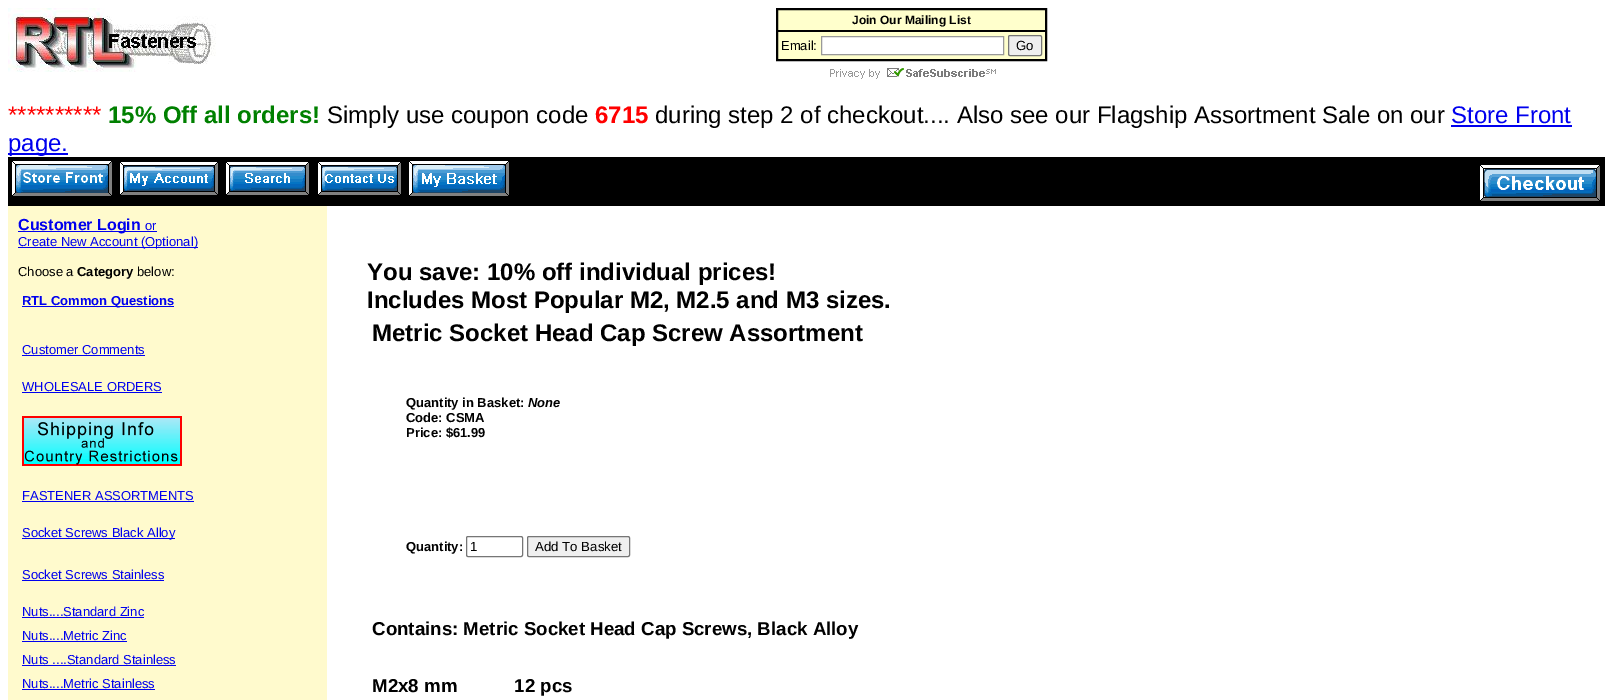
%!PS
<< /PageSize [1613 700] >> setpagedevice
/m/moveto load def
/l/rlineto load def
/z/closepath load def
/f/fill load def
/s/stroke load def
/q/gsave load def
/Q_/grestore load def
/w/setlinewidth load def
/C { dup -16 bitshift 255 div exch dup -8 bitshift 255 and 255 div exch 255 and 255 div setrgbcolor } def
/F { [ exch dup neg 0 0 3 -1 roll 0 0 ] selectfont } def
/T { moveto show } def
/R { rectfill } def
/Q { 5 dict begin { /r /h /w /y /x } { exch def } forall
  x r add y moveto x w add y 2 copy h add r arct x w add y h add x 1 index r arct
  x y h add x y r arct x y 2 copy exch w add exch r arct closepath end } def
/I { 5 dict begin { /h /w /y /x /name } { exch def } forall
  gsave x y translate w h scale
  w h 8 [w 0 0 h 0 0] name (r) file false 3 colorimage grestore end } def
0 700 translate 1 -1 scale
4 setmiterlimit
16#FFFFFF C
0 0 1613 700 R
(1.rgb) 8 8 208 64 I
16#FFFFCC C
777 9 m 269 0 l 0 51 l -269 0 l z q f Q_
16#000000 C
2 w
s
/LiberationSans-Bold 12 F
(Join Our Mailing List) 852 24 T
778 30 267 2 R
/LiberationSans-Regular 13 F
(Email:) 781 50 T
16#FFFFFF C
821.5 36.5 m 182 0 l 0 18 l -182 0 l z q f Q_
16#999999 C
1 w
s
16#EFEFEF C
1008.5 35.5 33 20 1.5 Q q f Q_
16#767676 C
s
/LiberationSans-Regular 13.25 F
16#000000 C
(Go) 1016 50 T
(2.rgb) 830 68 166 11 I
/LiberationSans-Regular 24 F
16#FF0000 C
(**********) 8 123 T
/LiberationSans-Bold 24 F
16#008000 C
(15% Off all orders!) 108 123 T
/LiberationSans-Regular 24 F
16#000000 C
(Simply use coupon code) 327 123 T
/LiberationSans-Bold 24 F
16#FF0000 C
(6715) 595 123 T
/LiberationSans-Regular 24 F
16#000000 C
(during step 2 of checkout.... Also see our Flagship Assortment Sale on our) 655 123 T
16#0000EE C
(Store Front) 1451 123 T
1451 125 121 2 R
8 153 60 2 R
(page.) 8 151 T
16#000000 C
8 157 1597 49 R
(3.rgb) 12 161 100 35 I
(4.rgb) 120 162 98 33 I
(5.rgb) 226 162 83 33 I
(6.rgb) 318 162 83 33 I
(7.rgb) 409 161 100 35 I
(8.rgb) 1480 165 120 36 I
16#FFFACD C
8 206 319 494 R
16#0000EE C
18 231 139 1 R
/LiberationSans-Bold 16 F
(Customer Login) 18 230 T
/LiberationSans-Regular 13 F
(or) 145 230 T
18 247 180 1 R
(Create New Account \(Optional\)) 18 246 T
16#000000 C
(Choose a) 18 276 T
/LiberationSans-Bold 13 F
(Category) 77 276 T
/LiberationSans-Regular 13 F
(below:) 137 276 T
16#0000EE C
22 306 152 1 R
/LiberationSans-Bold 13 F
(RTL Common Questions) 22 305 T
/LiberationSans-Regular 13 F
(Customer Comments) 22 354 T
22 355 123 1 R
(WHOLESALE ORDERS) 22 391 T
22 392 140 1 R
(9.rgb) 22 416 160 50 I
(FASTENER ASSORTMENTS) 22 500 T
22 501 172 1 R
22 538 153 1 R
(Socket Screws Black Alloy) 22 537 T
(Socket Screws Stainless) 22 579 T
22 580 142 1 R
(Nuts....Standard Zinc) 22 616 T
22 617 122 1 R
(Nuts....Metric Zinc) 22 640 T
22 641 105 1 R
(Nuts ....Standard Stainless) 22 664 T
22 665 154 1 R
(Nuts....Metric Stainless) 22 688 T
22 689 133 1 R
/LiberationSans-Bold 24 F
16#000000 C
(You save: 10% off individual prices!) 367 280 T
(Includes Most Popular M2, M2.5 and M3 sizes.) 367 308 T
(Metric Socket Head Cap Screw Assortment) 372 341 T
/LiberationSans-Bold 13 F
(Quantity in Basket:) 406 407 T
/LiberationSans-BoldItalic 13 F
(None) 528 407 T
/LiberationSans-Bold 13 F
(Code: CSMA) 406 422 T
(Price: $61.99) 406 437 T
(Quantity:) 406 551 T
16#767676 C
466.5 536.5 56 20 1.5 Q s
/LiberationSans-Regular 13.25 F
16#000000 C
(1) 470 551 T
16#EFEFEF C
527.5 536.5 102 20 1.5 Q q f Q_
16#767676 C
s
16#000000 C
(Add To Basket) 535 551 T
/LiberationSans-Bold 18.7 F
(Contains: Metric Socket Head Cap Screws, Black Alloy) 372 635 T
(M2x8 mm           12 pcs) 372 692 T
showpage
